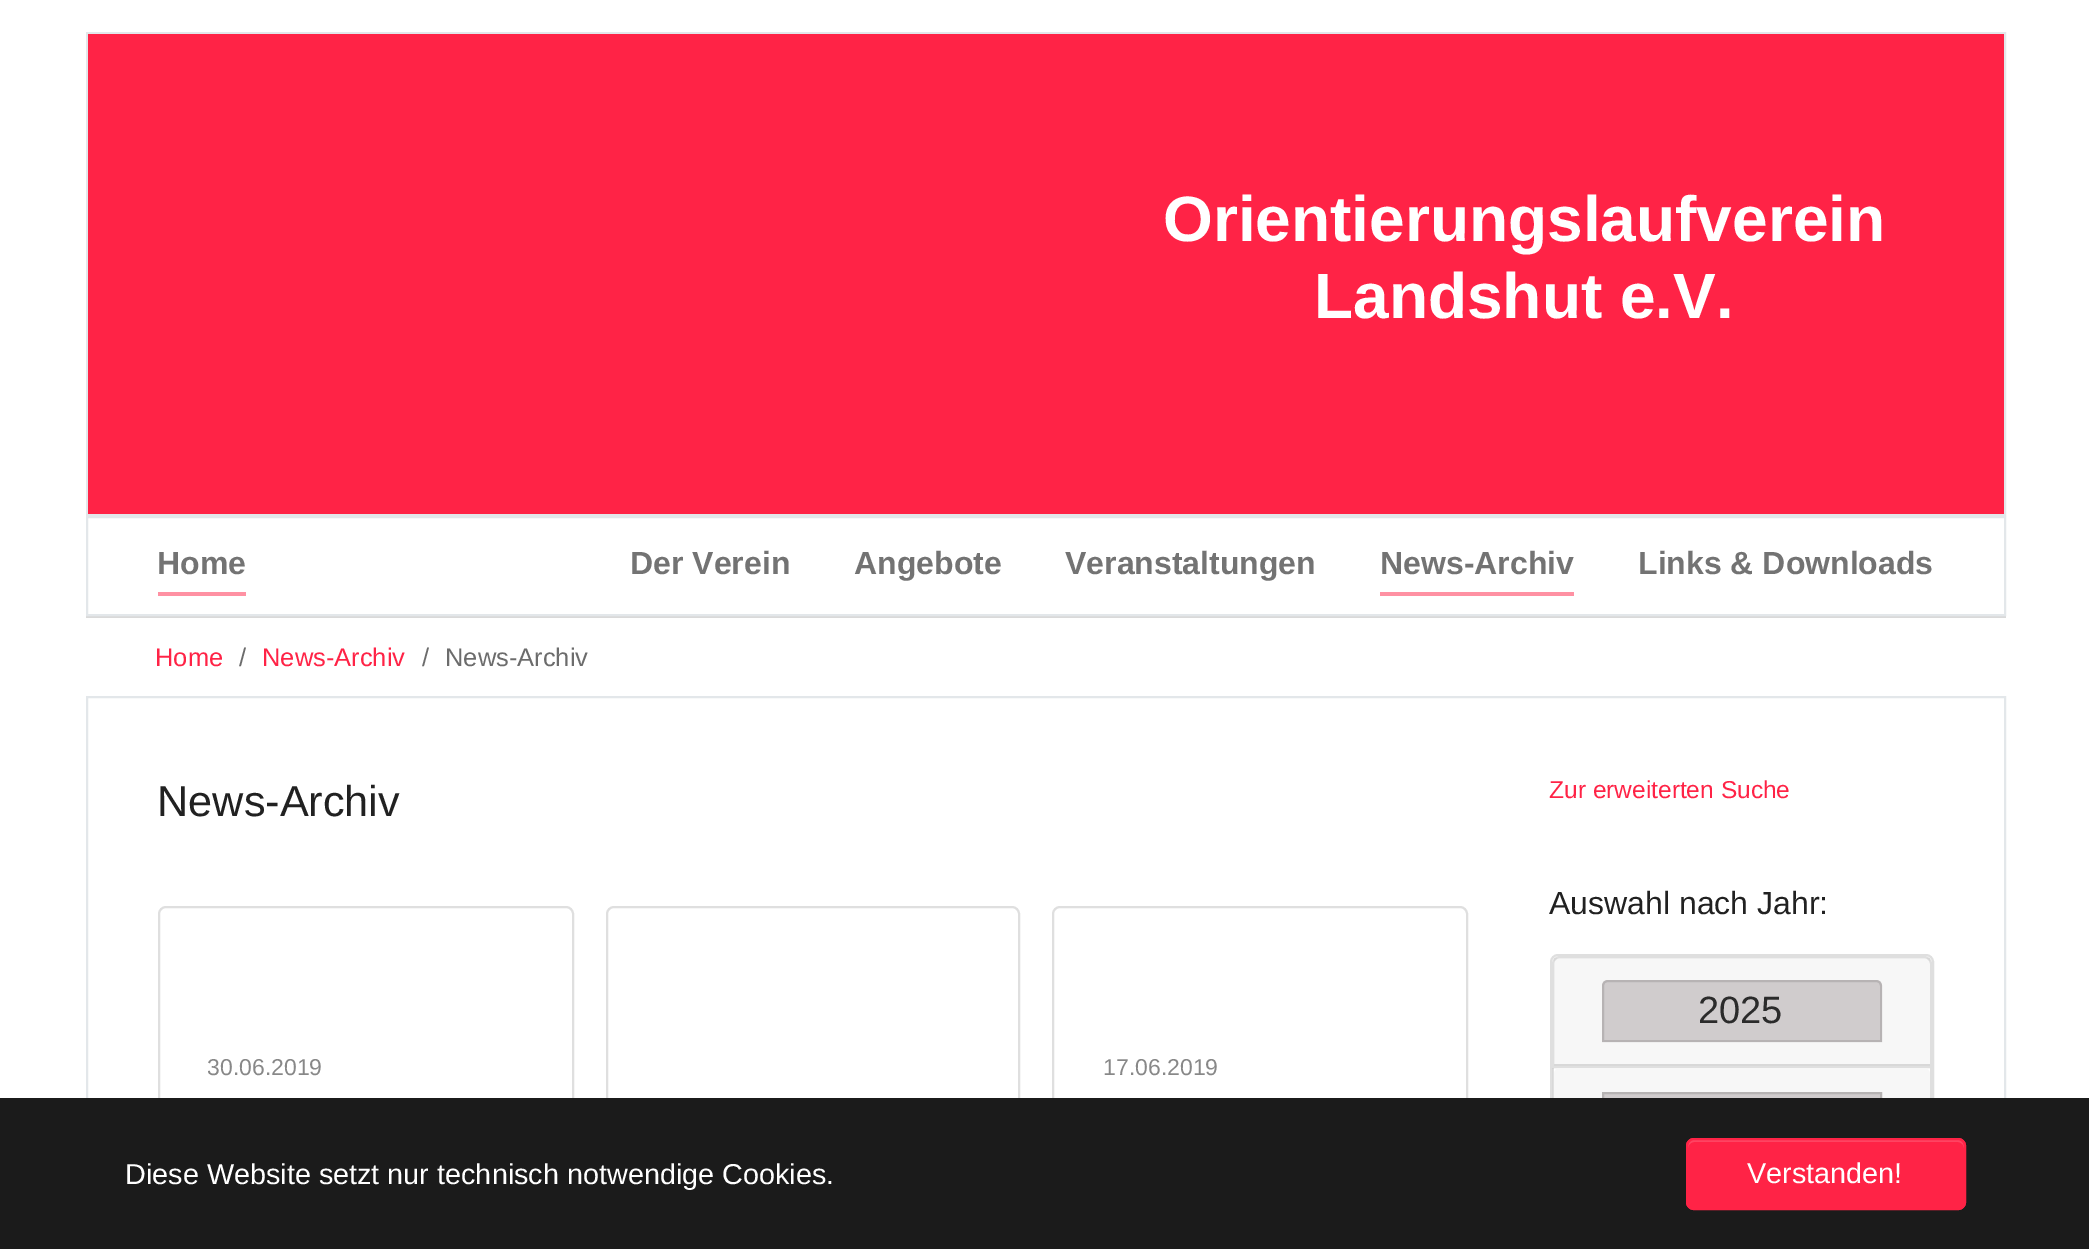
%!PS
<< /PageSize [2089 1249] /PageUsesTransparency true >> setpagedevice
/m/moveto load def
/l/rlineto load def
/c/rcurveto load def
/z/closepath load def
/f/fill load def
/s/stroke load def
/w/setlinewidth load def
/C { dup -16 bitshift 255 div exch dup -8 bitshift 255 and 255 div exch 255 and 255 div setrgbcolor } def
/F { [ exch dup neg 0 0 3 -1 roll 0 0 ] selectfont } def
/T { moveto show } def
/R { rectfill } def
/A { dup .setfillconstantalpha .setstrokeconstantalpha } def
/Q { 5 dict begin { /r /h /w /y /x } { exch def } forall
  x r add y moveto x w add y 2 copy h add r arct x w add y h add x 1 index r arct
  x y h add x y r arct x y 2 copy exch w add exch r arct closepath end } def
0 .pushpdf14devicefilter
0 1249 translate 1 -1 scale
4 setmiterlimit
16#FFFFFF C
0 0 2089 1249 R
16#E3E7EA C
2 w
87 33 1918 482 rectstroke
16#FF2346 C
88 34 1916 480 R
/LiberationSans-Bold 64 F
16#FFFFFF C
(Orientierungslaufverein) 1163 241 T
(Landshut e.V.) 1314 318 T
16#D9D9D9 C
86 616 1920 2 R
16#E3E7EA C
87 517 1918 98 rectstroke
/LiberationSans-Bold 32 F
16#737373 C
(Home) 157 574 T
16#FF91A3 C
158 592 88 4 R
16#737373 C
(Der Verein) 630 574 T
(Angebote) 854 574 T
(Veranstaltungen) 1065 574 T
(News-Archiv) 1380 574 T
16#FF91A3 C
1380 592 194 4 R
16#737373 C
(Links & Downloads) 1638 574 T
/LiberationSans-Regular 25.5 F
16#FF2346 C
(Home) 155 666 T
16#6C6C6C C
(/) 239 666 T
16#FF2346 C
(News-Archiv) 262 666 T
16#6C6C6C C
(/) 422 666 T
(News-Archiv) 445 666 T
16#E3E7EA C
87 697 1918 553 rectstroke
/LiberationSans-Regular 43.25 F
16#212121 C
(News-Archiv) 157 816 T
16#DFDFDF C
159 907 414 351 7 Q s
/LiberationSans-Regular 23 F
16#888888 C
(30.06.2019) 207 1075 T
16#DFDFDF C
607 907 412 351 7 Q s
1053 907 414 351 7 Q s
16#888888 C
(17.06.2019) 1103 1075 T
/LiberationSans-Regular 24.5 F
16#FF2346 C
(Zur erweiterten Suche) 1549 798 T
/LiberationSans-Regular 32 F
16#212121 C
(Auswahl nach Jahr:) 1549 914 T
16#DFDFDF C
1551 955 382 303 7 Q s
1560 957 m 364 0 l 4 0 7 3 7 7 c 0 103 l -378 0 l 0 -103 l 0 -4 3 -7 7 -7 c z s
0.03 A
16#000000 C
1554 958 376 106 R
1 A
16#D8D8D8 C
1554 1064 376 2 R
16#D0CCCD C
1608 980 m 268 0 l 3.5 0 6 2.5 6 6 c 0 56 l -280 0 l 0 -56 l 0 -3.5 2.5 -6 6 -6 c z f
0.12 A
16#000000 C
1608 981 m 268 0 l 3 0 5 2 5 5 c 0 55 l -278 0 l 0 -55 l 0 -3 2 -5 5 -5 c z s
/LiberationSans-Regular 38 F
1 A
16#2B2B2B C
(2025) 1698 1023 T
16#DFDFDF C
1932 1068 m 0 112 l -2 -2 l 0 -110 l z f
0.12 A
16#000000 C
1552 1180 m 0 -112 l 2 0 l 0 110 l z f
1 A
16#F7F7F7 C
1560 1068 m 364 0 l 3.5 0 6 2.5 6 6 c 0 104 l -376 0 l 0 -104 l 0 -3.5 2.5 -6 6 -6 c z f
16#D0CCCD C
1604 1094 276 4 R
16#B6B3B3 C
1603 1093 278 58 rectstroke
16#1B1B1B C
0 1098 2089 151 R
/LiberationSans-Regular 28.8 F
16#FFFFFF C
(Diese Website setzt nur technisch notwendige Cookies.) 125 1184 T
16#FF2346 C
1686 1138 280 72 8 Q f
16#FF4462 C
1694 1142 m 264 0 l 3 0 6 3 6 6 c 0 -3 -1 -7 -5 -8 c -266 0 l -4 1 -5 5 -5 8 c 0 -3 3 -6 6 -6 c z f
16#FF2346 C
1687 1139 278 70 7 Q s
16#FFFFFF C
(Verstanden!) 1747 1183 T
.poppdf14devicefilter showpage
